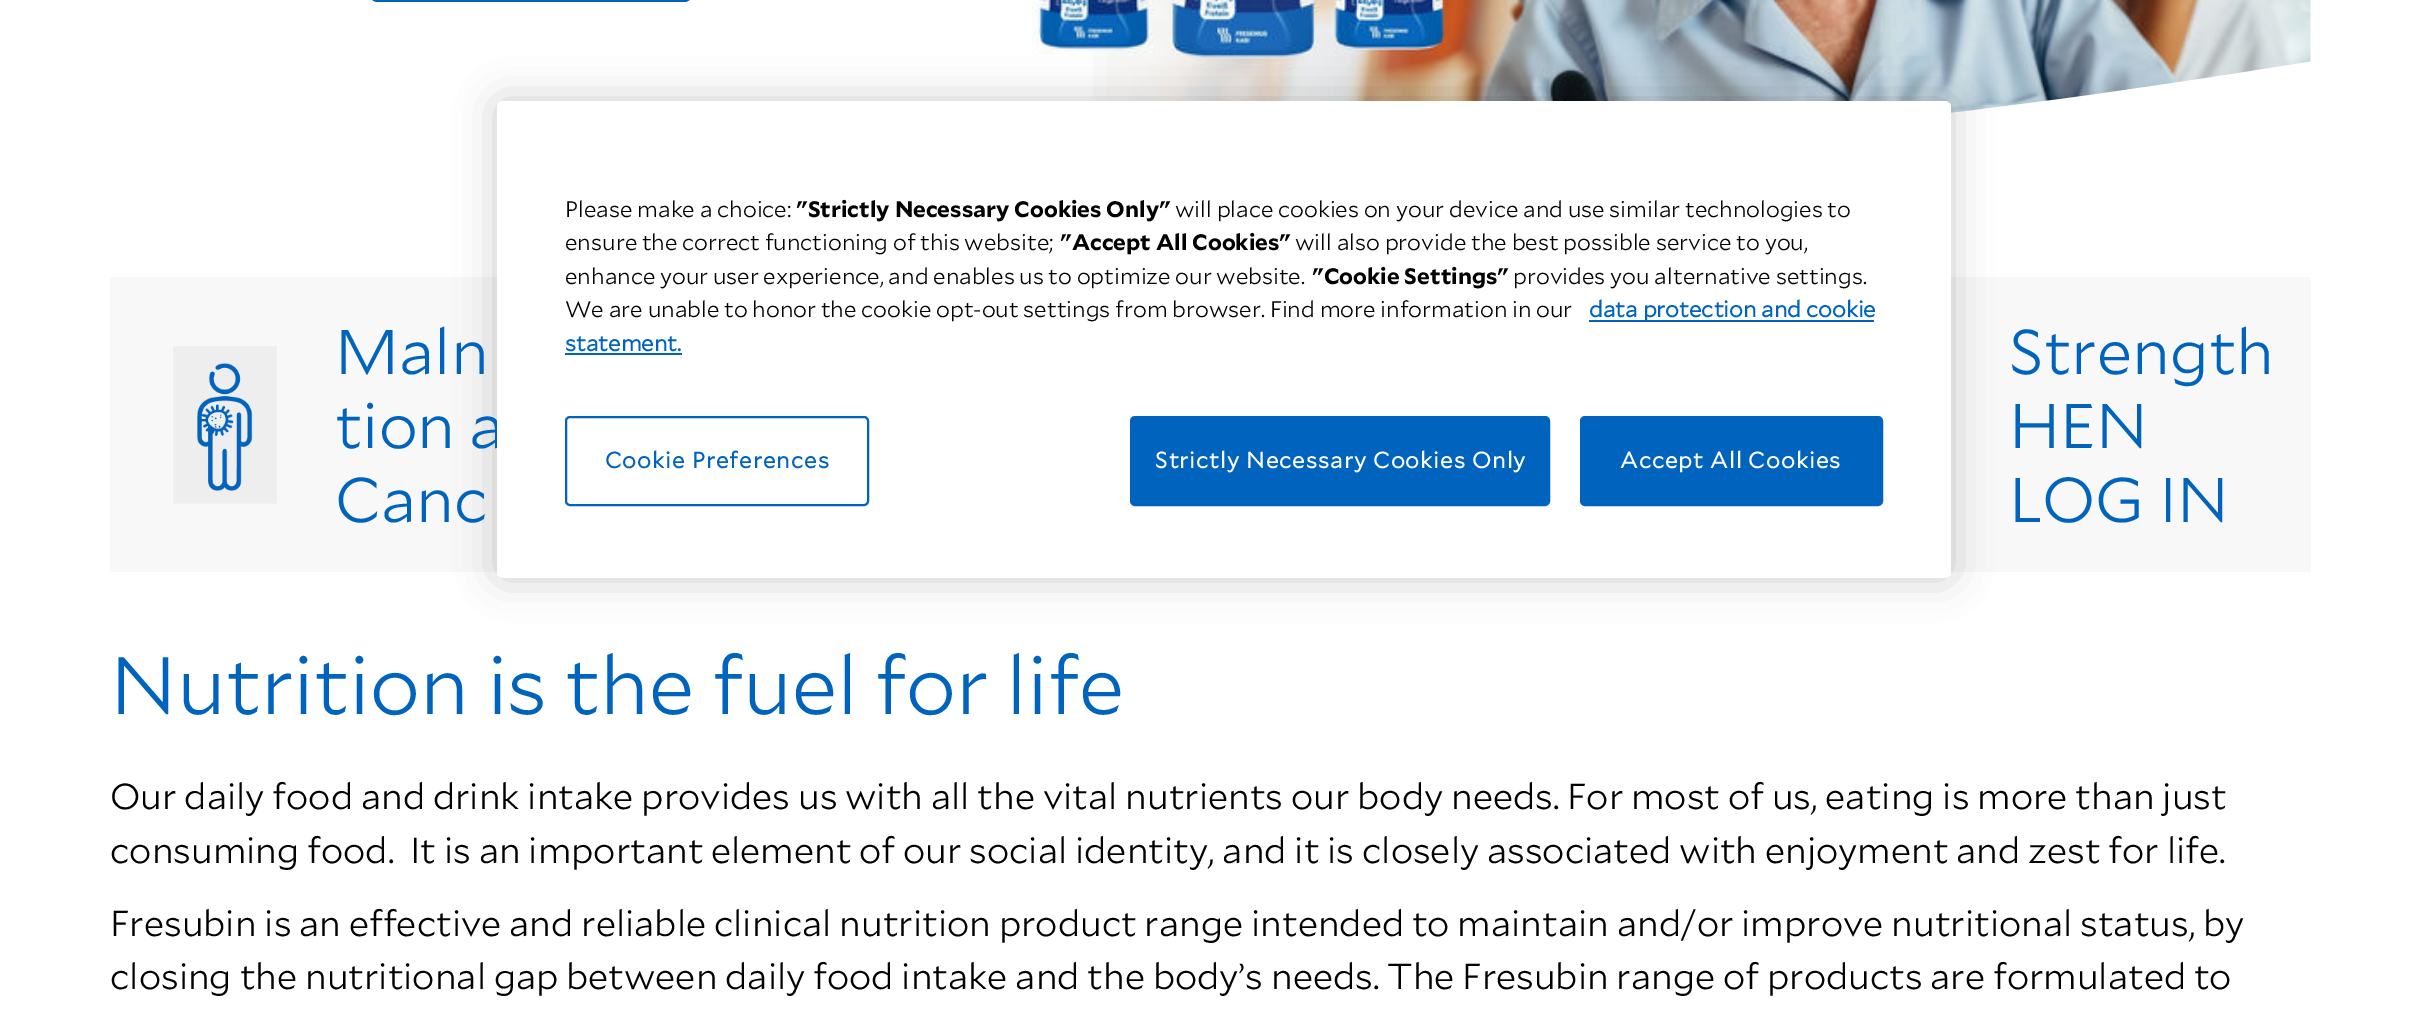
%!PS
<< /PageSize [2419 1018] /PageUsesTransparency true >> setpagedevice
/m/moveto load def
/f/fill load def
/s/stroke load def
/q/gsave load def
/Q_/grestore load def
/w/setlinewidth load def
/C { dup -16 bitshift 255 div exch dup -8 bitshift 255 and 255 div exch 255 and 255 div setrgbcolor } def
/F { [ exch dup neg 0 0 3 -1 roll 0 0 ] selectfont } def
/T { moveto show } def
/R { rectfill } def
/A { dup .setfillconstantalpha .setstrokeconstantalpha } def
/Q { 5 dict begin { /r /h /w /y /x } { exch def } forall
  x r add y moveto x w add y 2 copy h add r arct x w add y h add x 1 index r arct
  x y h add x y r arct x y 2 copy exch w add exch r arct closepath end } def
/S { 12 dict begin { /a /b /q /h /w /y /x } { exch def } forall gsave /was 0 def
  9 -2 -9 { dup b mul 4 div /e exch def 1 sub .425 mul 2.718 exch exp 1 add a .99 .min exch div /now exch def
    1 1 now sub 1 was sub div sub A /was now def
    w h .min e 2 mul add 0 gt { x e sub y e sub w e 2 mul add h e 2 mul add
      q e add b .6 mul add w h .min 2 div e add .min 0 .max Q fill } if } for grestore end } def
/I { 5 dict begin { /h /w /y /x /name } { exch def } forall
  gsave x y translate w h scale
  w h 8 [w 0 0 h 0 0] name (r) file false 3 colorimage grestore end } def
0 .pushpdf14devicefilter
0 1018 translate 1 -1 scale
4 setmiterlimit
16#FFFFFF C
0 0 2419 1018 R
(1.rgb) 1031 0 1280 113 I
16#F8F8F8 C
110 277 387 295 R
1951 277 360 295 R
16#000000 C
497 101 1454 477 6 20 .2 S
/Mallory-Light 63 F
16#0063BE C
(tion a) 335 448 T
16#FFFFFF C
497 101 1454 477 6 Q f
/Mallory-Light 22.4 F
16#000000 C
(Please make a choice:) 565 217 T
/Mallory-Bold 22.4 F
("Strictly Necessary Cookies Only") 796 217 T
/Mallory-Light 22.4 F
1175 217 m -.1 0 32 (will place cookies on your device and use similar technologies to) widthshow
565 250 m -.25 0 32 (ensure the correct functioning of this website;) widthshow
/Mallory-Bold 22.4 F
("Accept All Cookies") 1060 250 T
/Mallory-Light 22.4 F
(will also provide the best possible service to you,) 1295 250 T
565 284 m -.25 0 32 (enhance your user experience, and enables us to optimize our website.) widthshow
/Mallory-Bold 22.4 F
("Cookie Settings") 1312 284 T
/Mallory-Light 22.4 F
(provides you alternative settings.) 1513 284 T
565 317 m -.1 0 32 (We are unable to honor the cookie opt-out settings from browser. Find more information in our) widthshow
16#0063BE C
1589 320 285 2 R
/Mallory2-Bold 22.4 F
(data protection and cookie) 1589 317 T
(statement.) 565 351 T
565 353 117 2 R
2 w
566 417 302 88 4 Q s
605 468 m 1.1 0 (Cookie Preferences) ashow
1131 417 418 88 4 Q q f Q_
s
16#FFFFFF C
1155 468 m 1.1 0 (Strictly Necessary Cookies Only) ashow
16#0063BE C
1581 417 301 88 4 Q q f Q_
s
16#FFFFFF C
1620 468 m 1.1 0 (Accept All Cookies) ashow
16#0063BE C
369 -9 324 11 9 Q f
(2.rgb) 173 346 104 158 I
/Mallory-Light 63 F
(Maln) 335 374 T
(Canc) 335 522 T
(Strength) 2009 374 T
(HEN) 2009 448 T
(LOG IN) 2009 522 T
/Mallory-Light 81 F
(Nutrition is the fuel for life) 110 714 T
/Mallory-Light 36 F
16#000000 C
(Our daily food and drink intake provides us with all the vital nutrients our body needs. For most of us, eating is more than just) 110 809 T
(consuming food.  It is an important element of our social identity, and it is closely associated with enjoyment and zest for life.) 110 863 T
(Fresubin is an effective and reliable clinical nutrition product range intended to maintain and/or improve nutritional status, by) 110 936 T
(closing the nutritional gap between daily food intake and the body’s needs. The Fresubin range of products are formulated to) 110 989 T
.poppdf14devicefilter showpage
